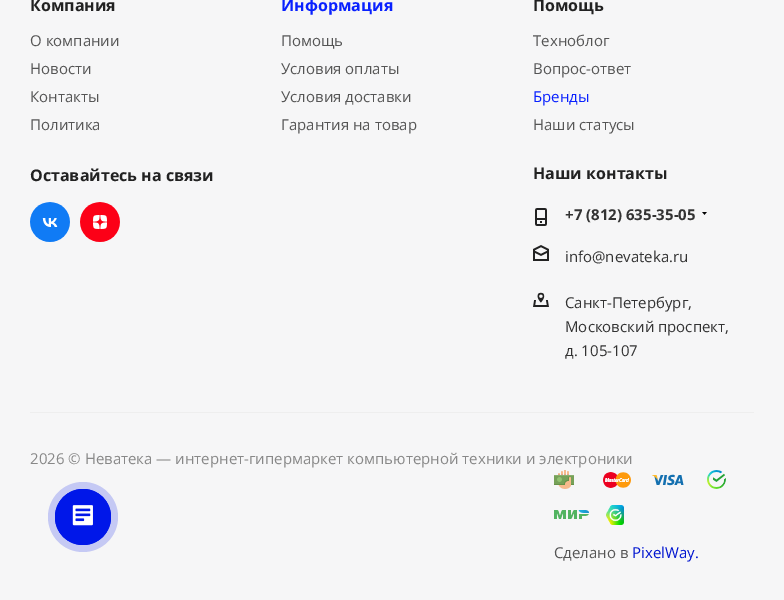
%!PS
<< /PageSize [784 600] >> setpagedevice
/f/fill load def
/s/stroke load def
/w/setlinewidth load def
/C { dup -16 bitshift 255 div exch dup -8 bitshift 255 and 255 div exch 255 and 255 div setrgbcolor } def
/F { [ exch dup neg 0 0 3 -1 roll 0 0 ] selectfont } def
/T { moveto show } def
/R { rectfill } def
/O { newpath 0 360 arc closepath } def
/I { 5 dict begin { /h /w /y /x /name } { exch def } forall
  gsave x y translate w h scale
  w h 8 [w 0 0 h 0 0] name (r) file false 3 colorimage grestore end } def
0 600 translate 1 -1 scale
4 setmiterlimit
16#F6F6F7 C
0 0 784 600 R
/OpenSans-Bold 16 F
16#222222 C
(Компания) 30 11 T
/OpenSans-Regular 15 F
16#555555 C
(О компании) 30 46 T
(Новости) 30 74 T
(Контакты) 30 102 T
(Политика) 30 130 T
/OpenSans-Bold 16 F
16#0921FF C
(Информация) 281 11 T
/OpenSans-Regular 15 F
16#555555 C
(Помощь) 281 46 T
(Условия оплаты) 281 74 T
(Условия доставки) 281 102 T
(Гарантия на товар) 281 130 T
/OpenSans-Bold 16 F
16#222222 C
(Помощь) 533 11 T
/OpenSans-Regular 15 F
16#555555 C
(Техноблог) 533 46 T
(Вопрос-ответ) 533 74 T
16#0921FF C
(Бренды) 533 102 T
16#555555 C
(Наши статусы) 533 130 T
/OpenSans-Bold 16 F
16#222222 C
(Оставайтесь на связи) 30 181 T
(1.rgb) 30 202 40 40 I
(2.rgb) 80 202 40 40 I
(Наши контакты) 533 179 T
(3.rgb) 535 208 12 18 I
/OpenSans-Bold 15 F
16#333333 C
(+7 \(812\) 635-35-05) 565 220 T
(4.rgb) 702 212 5 3 I
(5.rgb) 533 245 16 16 I
/OpenSans-Regular 15 F
(info@nevateka.ru) 565 262 T
(6.rgb) 533 292 16 15 I
(Санкт-Петербург,) 565 308 T
(Московский проспект,) 565 332 T
(д. 105-107) 565 356 T
16#EEEEEE C
30 412 724 1 R
16#888888 C
(2026 © Неватека — интернет-гипермаркет компьютерной техники и электроники) 30 464 T
(7.rgb) 554 470 20 19 I
(8.rgb) 603 472 28 16 I
(9.rgb) 652 474 32 12 I
(10.rgb) 707 470 19 19 I
(11.rgb) 554 510 35 9 I
(12.rgb) 606 505 18 20 I
16#555555 C
(Сделано в) 554 558 T
16#0014D0 C
(PixelWay.) 632 558 T
16#C5C9F4 C
83 517 35 O f
16#0017E9 C
.8 w
83 517 27.6 O s
83 517 28 O f
(13.rgb) 72 505 21 21 I
showpage
